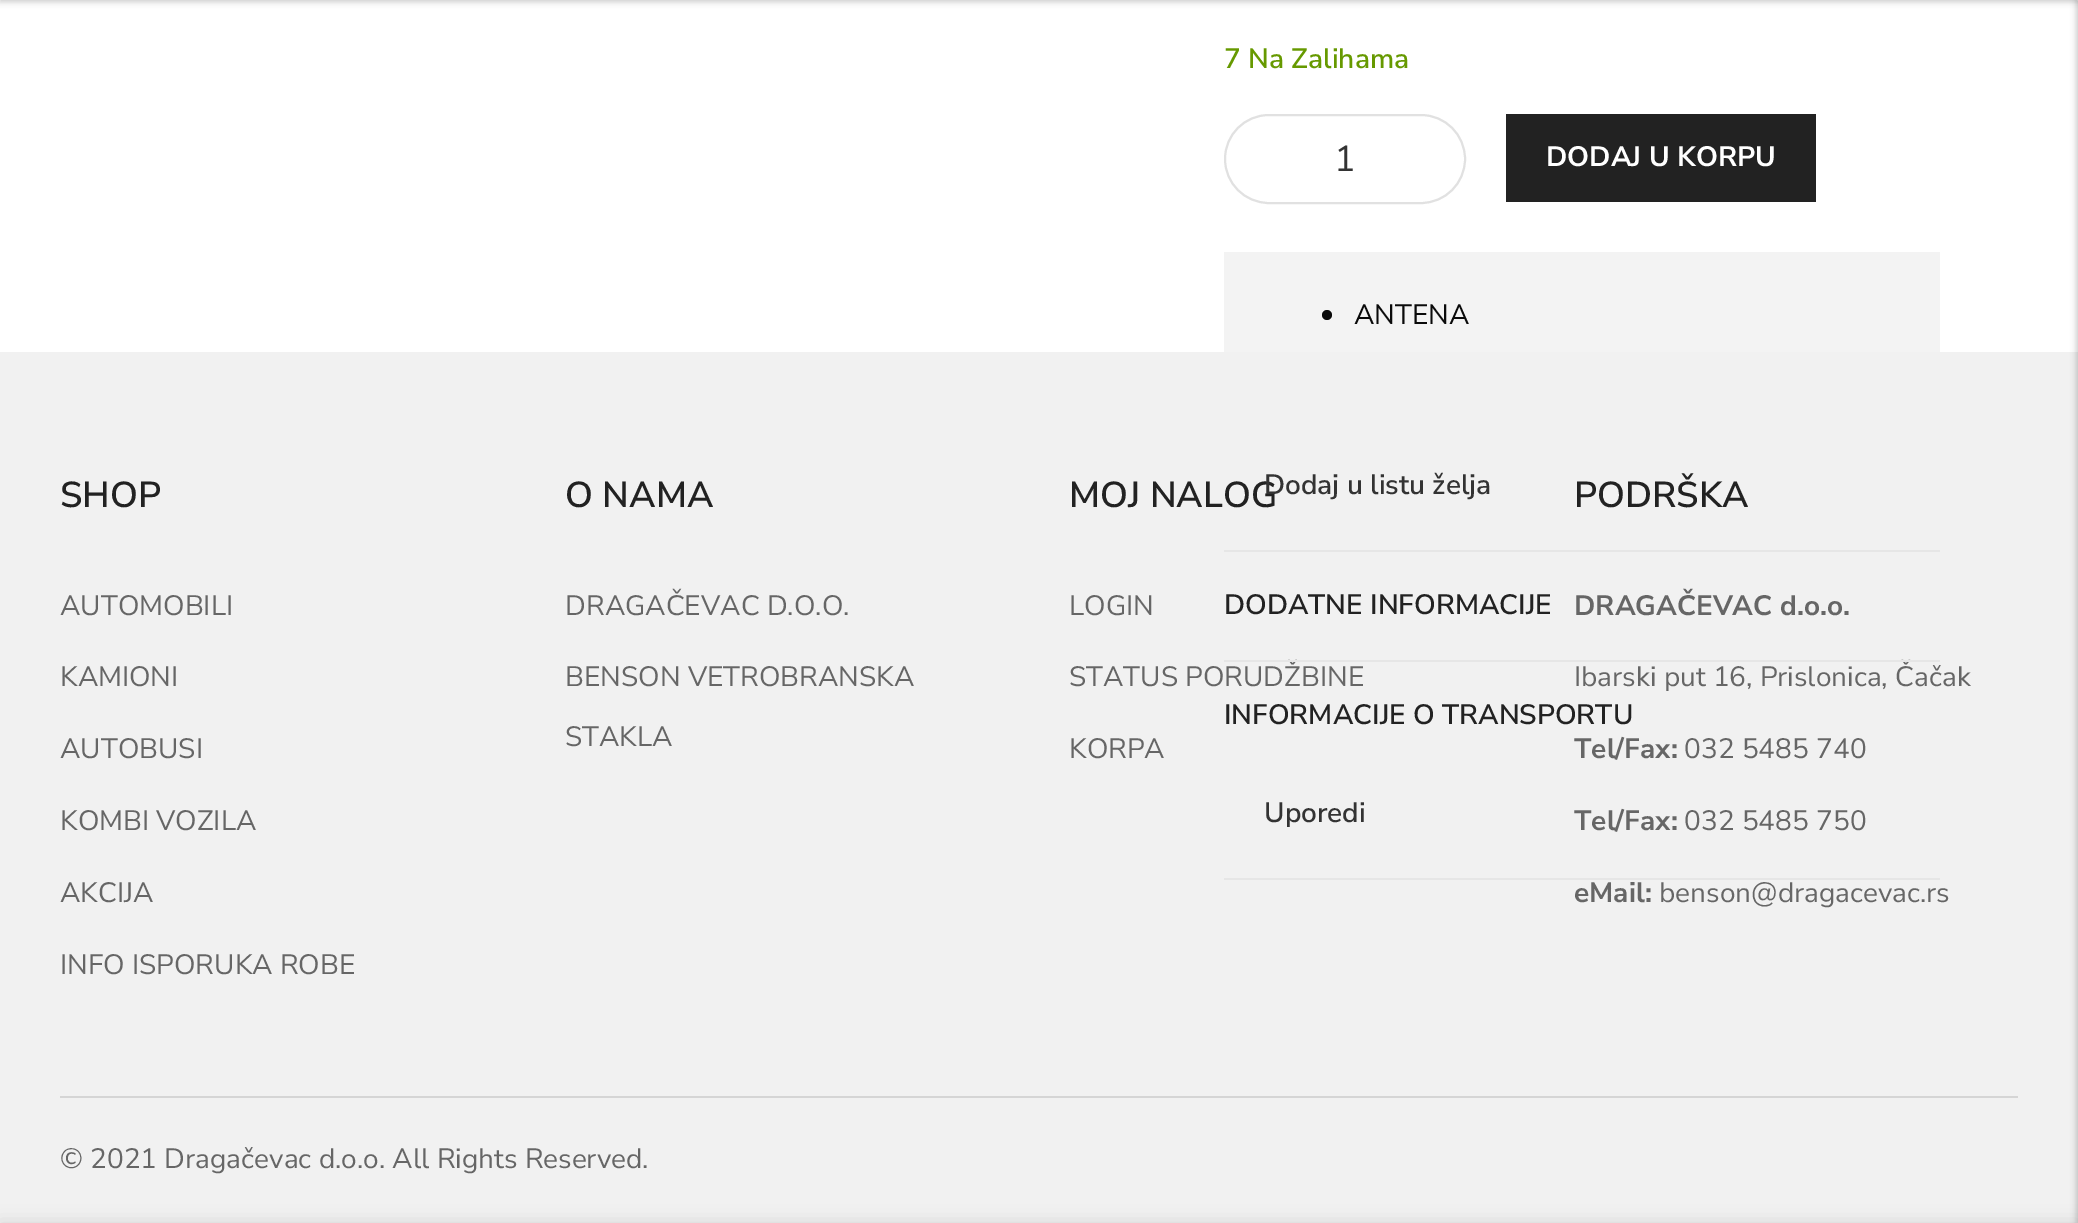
%!PS
<< /PageSize [2078 1223] /PageUsesTransparency true >> setpagedevice
/f/fill load def
/s/stroke load def
/w/setlinewidth load def
/C { dup -16 bitshift 255 div exch dup -8 bitshift 255 and 255 div exch 255 and 255 div setrgbcolor } def
/F { [ exch dup neg 0 0 3 -1 roll 0 0 ] selectfont } def
/T { moveto show } def
/R { rectfill } def
/A { dup .setfillconstantalpha .setstrokeconstantalpha } def
/O { newpath 0 360 arc closepath } def
/Q { 5 dict begin { /r /h /w /y /x } { exch def } forall
  x r add y moveto x w add y 2 copy h add r arct x w add y h add x 1 index r arct
  x y h add x y r arct x y 2 copy exch w add exch r arct closepath end } def
/S { 12 dict begin { /a /b /q /h /w /y /x } { exch def } forall gsave /was 0 def
  9 -2 -9 { dup b mul 4 div /e exch def 1 sub .425 mul 2.718 exch exp 1 add a .99 .min exch div /now exch def
    1 1 now sub 1 was sub div sub A /was now def
    w h .min e 2 mul add 0 gt { x e sub y e sub w e 2 mul add h e 2 mul add
      q e add b .6 mul add w h .min 2 div e add .min 0 .max Q fill } if } for grestore end } def
0 .pushpdf14devicefilter
0 1223 translate 1 -1 scale
4 setmiterlimit
16#FFFFFF C
0 0 2078 1223 R
16#000000 C
0 -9 2078 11 0 3 .2 S
/NunitoSans-SemiBold 28 F
16#669900 C
(7 Na Zalihama) 1224 68 T
16#E1E1E1 C
2 w
1225 115 240 88 44 Q s
/NunitoSans-Regular 36 F
16#333333 C
(1) 1334 171 T
16#222222 C
1506 114 310 88 R
/NunitoSans-Bold 28 F
16#FFFFFF C
(DODAJ U KORPU) 1546 166 T
16#F3F3F3 C
1224 252 716 100 R
16#0A0A0A C
1327 315 5 O f
/NunitoSans-Regular 28 F
(ANTENA) 1354 324 T
16#F1F1F1 C
0 352 2078 871 R
/NunitoSans-SemiBold 36 F
16#222222 C
(MOJ NALOG) 1069 507 T
/NunitoSans-SemiBold 28 F
16#333333 C
(Dodaj u listu želja) 1264 494 T
16#E6E6E6 C
1224 550 716 2 R
16#222222 C
(DODATNE INFORMACIJE) 1224 614 T
/NunitoSans-Regular 28 F
16#666666 C
(STATUS PORUDŽBINE) 1069 686 T
(Ibarski put 16, Prislonica, Čačak) 1574 686 T
16#E6E6E6 C
1224 660 716 2 R
/NunitoSans-SemiBold 28 F
16#222222 C
(INFORMACIJE O TRANSPORTU) 1224 724 T
16#333333 C
(Uporedi) 1264 822 T
16#E6E6E6 C
1224 878 716 2 R
/NunitoSans-SemiBold 36 F
16#222222 C
(SHOP) 60 507 T
/NunitoSans-Regular 28 F
16#666666 C
(AUTOMOBILI) 60 615 T
(KAMIONI) 60 686 T
(AUTOBUSI) 60 758 T
(KOMBI VOZILA) 60 830 T
(AKCIJA) 60 902 T
(INFO ISPORUKA ROBE) 60 974 T
/NunitoSans-SemiBold 36 F
16#222222 C
(O NAMA) 565 507 T
/NunitoSans-Regular 28 F
16#666666 C
(DRAGAČEVAC D.O.O.) 565 615 T
(BENSON VETROBRANSKA) 565 686 T
(STAKLA) 565 746 T
(LOGIN) 1069 615 T
(KORPA) 1069 758 T
/NunitoSans-SemiBold 36 F
16#222222 C
(PODRŠKA) 1574 507 T
/NunitoSans-Bold 28 F
16#666666 C
(DRAGAČEVAC d.o.o.) 1574 615 T
(Tel/Fax:) 1574 758 T
/NunitoSans-Regular 28 F
(032 5485 740) 1684 758 T
/NunitoSans-Bold 28 F
(Tel/Fax:) 1574 830 T
/NunitoSans-Regular 28 F
(032 5485 750) 1684 830 T
/NunitoSans-Bold 28 F
(eMail:) 1574 902 T
/NunitoSans-Regular 28 F
(benson@dragacevac.rs) 1659 902 T
16#D5D5D5 C
60 1096 1958 2 R
16#666666 C
(© 2021 Dragačevac d.o.o. All Rights Reserved.) 60 1168 T
16#000000 C
2076 0 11 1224 0 3 .2 S
0 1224 2078 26 0 9 .14 S
.poppdf14devicefilter showpage
